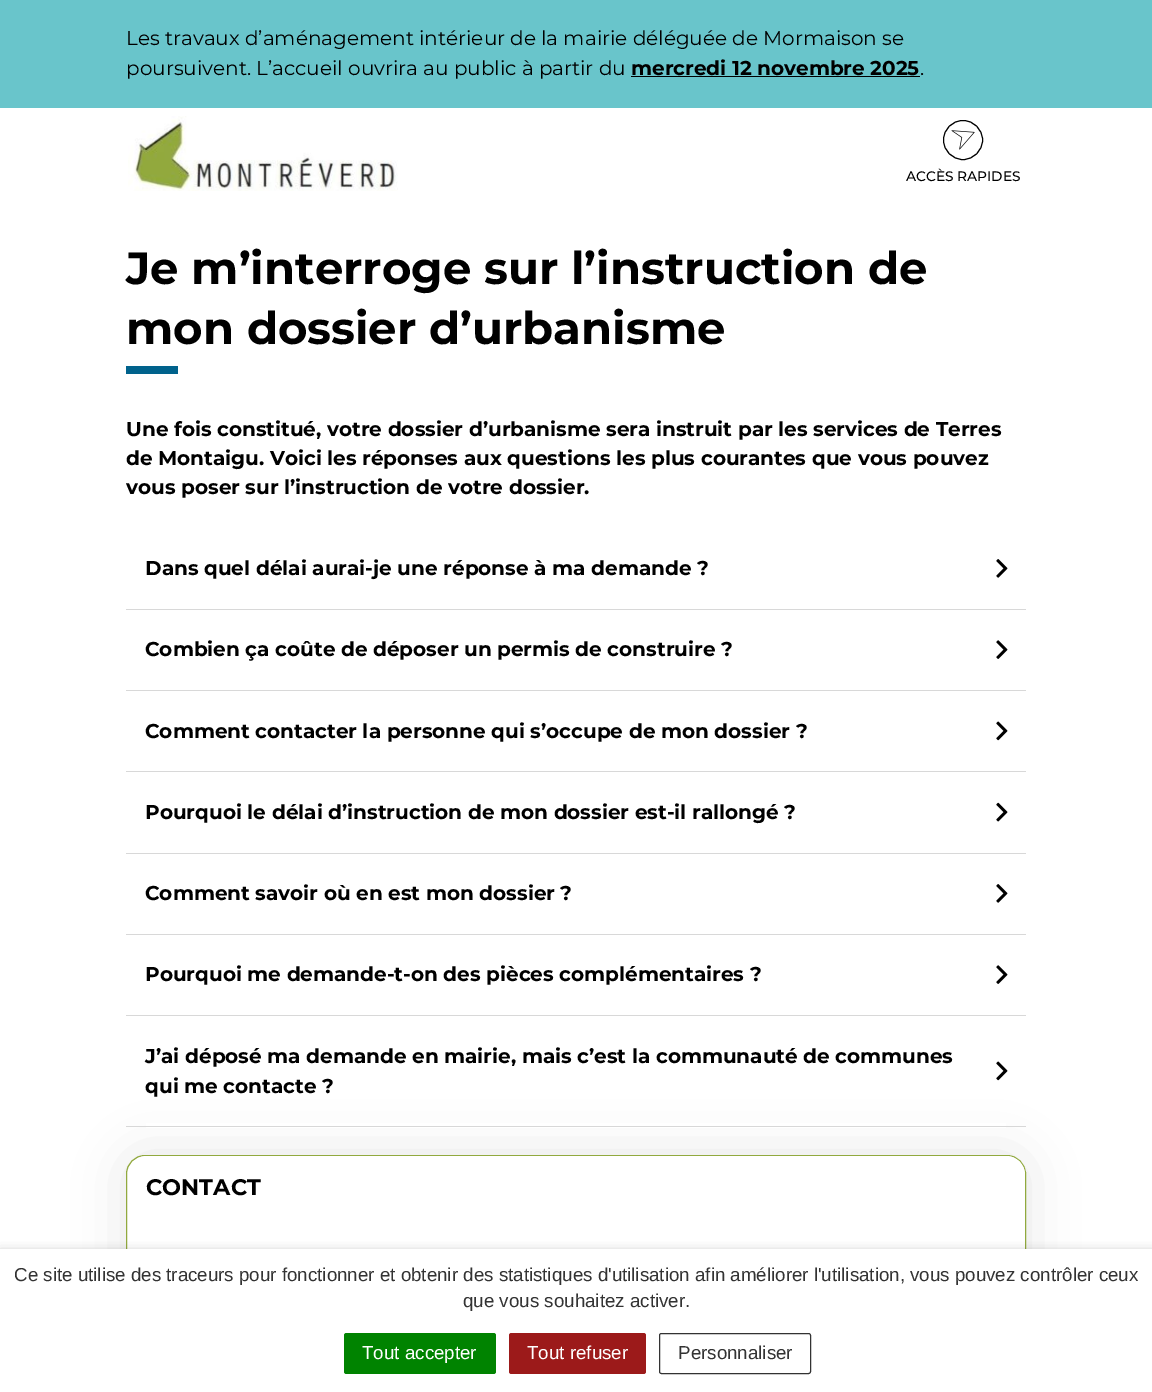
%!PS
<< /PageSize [1152 1392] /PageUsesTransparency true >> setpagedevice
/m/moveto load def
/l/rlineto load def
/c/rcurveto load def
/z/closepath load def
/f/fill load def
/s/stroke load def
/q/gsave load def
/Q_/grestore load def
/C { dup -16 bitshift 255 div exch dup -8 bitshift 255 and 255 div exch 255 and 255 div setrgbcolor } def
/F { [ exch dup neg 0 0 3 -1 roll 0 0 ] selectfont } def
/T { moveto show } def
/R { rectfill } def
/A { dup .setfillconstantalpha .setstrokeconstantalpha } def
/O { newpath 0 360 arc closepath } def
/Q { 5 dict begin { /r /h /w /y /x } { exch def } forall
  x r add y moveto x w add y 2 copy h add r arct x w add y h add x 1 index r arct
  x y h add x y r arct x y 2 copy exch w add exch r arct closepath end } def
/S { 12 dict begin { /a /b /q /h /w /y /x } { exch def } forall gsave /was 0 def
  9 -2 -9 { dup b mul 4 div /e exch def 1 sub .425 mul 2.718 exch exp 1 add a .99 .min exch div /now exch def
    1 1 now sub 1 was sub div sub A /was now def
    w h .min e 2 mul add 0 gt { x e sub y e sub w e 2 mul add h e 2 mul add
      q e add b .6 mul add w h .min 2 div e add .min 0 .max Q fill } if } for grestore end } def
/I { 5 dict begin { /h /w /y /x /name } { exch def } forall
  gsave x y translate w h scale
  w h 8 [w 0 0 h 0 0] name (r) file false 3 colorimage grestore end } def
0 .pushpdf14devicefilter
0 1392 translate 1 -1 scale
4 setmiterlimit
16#FFFFFF C
0 0 1152 1392 R
16#69C5CB C
0 0 1152 108 R
/Montserrat-Regular 20 F
16#000000 C
(Les travaux d’aménagement intérieur de la mairie déléguée de Mormaison se) 126 45 T
(poursuivent. L’accueil ouvrira au public à partir du) 126 75 T
/Montserrat-Bold 20 F
(mercredi 12 novembre 2025) 631 75 T
631 76 289 1 R
/Montserrat-Regular 20 F
(.) 920 75 T
(1.rgb) 128 116 270 75 I
963 140 19.5 O s
(2.rgb) 951 130 24 20 I
/Montserrat-Medium 13.75 F
(ACCÈS RAPIDES) 906 181 T
/Montserrat-Bold 45 F
(Je m’interroge sur l’instruction de) 126 284 T
(mon dossier d’urbanisme) 126 344 T
16#00628C C
126 366 52 8 R
/Montserrat-Bold 20 F
16#000000 C
(Une fois constitué, votre dossier d’urbanisme sera instruit par les services de Terres) 126 436 T
(de Montaigu. Voici les réponses aux questions les plus courantes que vous pouvez) 126 465 T
(vous poser sur l’instruction de votre dossier.) 126 494 T
16#D8D8D8 C
126 609 900 1 R
16#000000 C
(Dans quel délai aurai-je une réponse à ma demande ?) 145 575 T
(3.rgb) 996 559 12 19 I
16#D8D8D8 C
126 690 900 1 R
16#000000 C
(Combien ça coûte de déposer un permis de construire ?) 145 656 T
(4.rgb) 996 640 12 19 I
16#D8D8D8 C
126 771 900 1 R
16#000000 C
(Comment contacter la personne qui s’occupe de mon dossier ?) 145 738 T
(5.rgb) 996 721 12 20 I
16#D8D8D8 C
126 853 900 1 R
16#000000 C
(Pourquoi le délai d’instruction de mon dossier est-il rallongé ?) 145 819 T
(6.rgb) 996 802 12 20 I
16#D8D8D8 C
126 934 900 1 R
16#000000 C
(Comment savoir où en est mon dossier ?) 145 900 T
(3.rgb) 996 884 12 19 I
16#D8D8D8 C
126 1015 900 1 R
16#000000 C
(Pourquoi me demande-t-on des pièces complémentaires ?) 145 981 T
(4.rgb) 996 965 12 19 I
126 1155 900 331 19 25 .1 S
16#FFFFFF C
146 1123 860 5 R
16#D8D8D8 C
126 1126 900 1 R
16#000000 C
(J’ai déposé ma demande en mairie, mais c’est la communauté de communes) 145 1063 T
(5.rgb) 996 1061 12 20 I
(qui me contacte ?) 145 1093 T
16#FFFFFF C
126.5 1155.5 899 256 18.5 Q q f Q_
16#91A93E C
s
16#FFFFFF C
147 1156 m 859 0 l 10.5 0 19 8.5 19 19 c 0 45 l -897 0 l 0 -45 l 0 -10.5 8.5 -19 19 -19 c z f
/Montserrat-Bold 22.5 F
16#000000 C
(CONTACT) 146 1195 T
0 1255 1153 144 0 6 .5 S
16#FFFFFF C
0 1249 1152 143 R
/LiberationSans-Regular 18.75 F
16#333333 C
(Ce site utilise des traceurs pour fonctionner et obtenir des statistiques d'utilisation afin améliorer l'utilisation, vous pouvez contrôler ceux) 14 1281 T
(que vous souhaitez activer.) 463 1307 T
16#008300 C
344 1333 152 41 2.5 Q f
16#FFFFFF C
(Tout accepter) 362 1359 T
16#9C1A1A C
509 1333 137 41 2.5 Q f
16#FFFFFF C
(Tout refuser) 527 1359 T
16#333333 C
659.5 1333.5 151 40 2 Q s
(Personnaliser) 678 1359 T
.poppdf14devicefilter showpage
